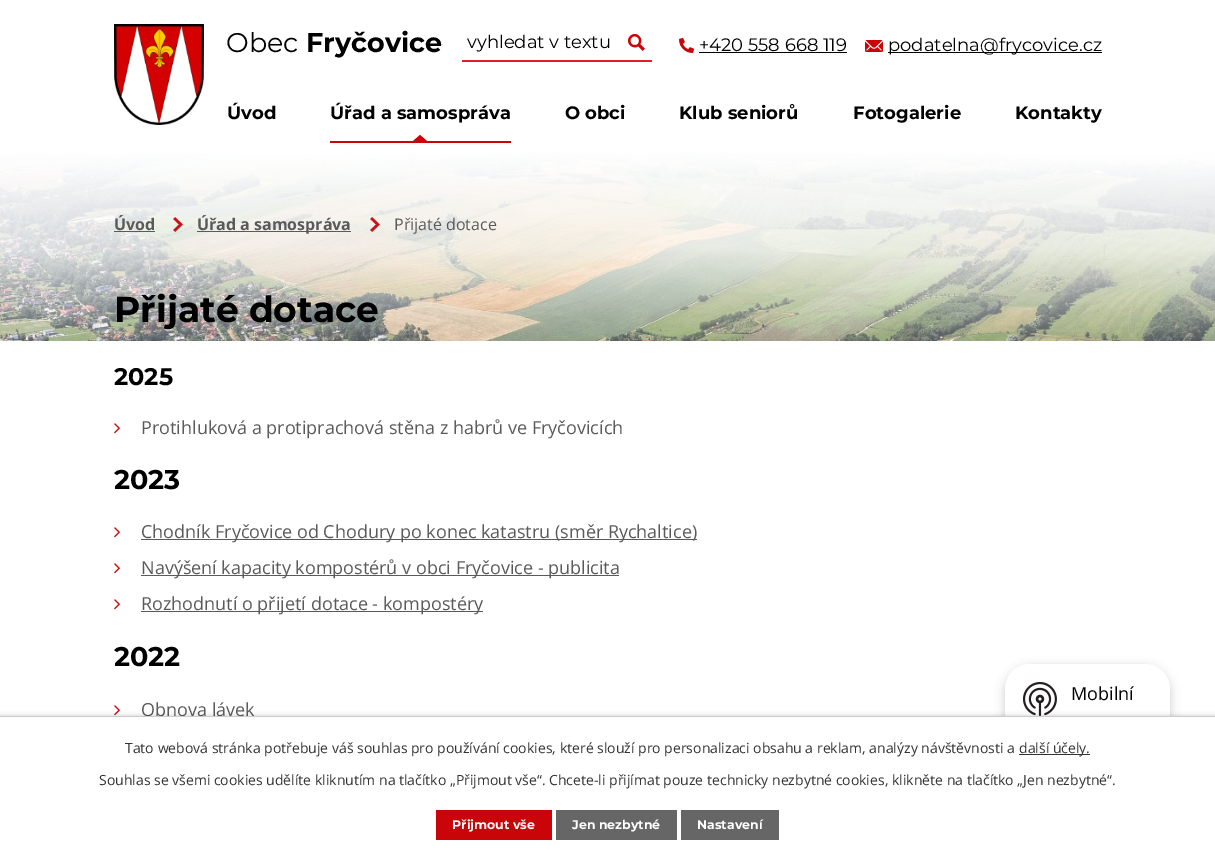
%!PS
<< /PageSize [1215 859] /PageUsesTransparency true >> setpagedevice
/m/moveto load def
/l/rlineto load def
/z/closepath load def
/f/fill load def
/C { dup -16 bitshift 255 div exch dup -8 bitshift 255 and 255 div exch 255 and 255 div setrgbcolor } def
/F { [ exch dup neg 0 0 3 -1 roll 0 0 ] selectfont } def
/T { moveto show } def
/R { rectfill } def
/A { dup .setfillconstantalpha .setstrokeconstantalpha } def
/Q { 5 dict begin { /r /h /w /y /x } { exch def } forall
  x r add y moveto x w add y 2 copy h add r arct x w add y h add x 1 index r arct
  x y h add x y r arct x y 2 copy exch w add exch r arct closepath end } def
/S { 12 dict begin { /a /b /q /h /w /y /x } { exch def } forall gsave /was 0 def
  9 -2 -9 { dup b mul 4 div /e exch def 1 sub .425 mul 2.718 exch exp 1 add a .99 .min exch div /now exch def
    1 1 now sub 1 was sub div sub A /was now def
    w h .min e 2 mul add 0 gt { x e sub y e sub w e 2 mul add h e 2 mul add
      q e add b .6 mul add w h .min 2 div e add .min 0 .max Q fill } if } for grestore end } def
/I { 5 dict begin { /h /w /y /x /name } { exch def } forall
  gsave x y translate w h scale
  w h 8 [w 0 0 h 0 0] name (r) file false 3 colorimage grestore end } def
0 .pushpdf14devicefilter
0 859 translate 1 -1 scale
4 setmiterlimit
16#FFFFFF C
0 0 1215 859 R
(1.rgb) 114 24 90 101 I
/Montserrat-Regular 27 F
16#000000 C
(Obec) 226 52 T
/Montserrat-Bold 27 F
(Fryčovice) 306 52 T
16#DF2127 C
462 60 190 2 R
/Montserrat-Regular 18 F
16#000000 C
(vyhledat v textu) 467 48 T
(2.rgb) 628 34 17 17 I
(3.rgb) 679 38 15 15 I
(+420 558 668 119) 699 51 T
699 52 148 1 R
(4.rgb) 865 40 18 12 I
888 52 214 1 R
(podatelna@frycovice.cz) 888 51 T
(5.rgb) 0 154 1215 187 I
(6.rgb) 0 151 1215 190 I
/Montserrat-Bold 18 F
(Úvod) 227 119 T
(Úřad a samospráva) 330 119 T
16#C9050A C
427 141 m -14 0 l 7 -6 l z f
330 141 181 2 R
16#000000 C
(O obci) 565 119 T
(Klub seniorů) 679 119 T
(Fotogalerie) 853 119 T
(Kontakty) 1015 119 T
/OpenSans-Bold 16 F
16#5A5A5A C
(Úvod) 114 230 T
114 231 41 1 R
(7.rgb) 173 217 10 15 I
197 231 154 1 R
(Úřad a samospráva) 197 230 T
(8.rgb) 370 217 10 15 I
/OpenSans-Regular 16 F
(Přijaté dotace) 394 230 T
/Montserrat-Bold 36 F
16#000000 C
(Přijaté dotace) 114 322 T
/Montserrat-Bold 24 F
(2025) 114 385 T
(9.rgb) 114 423 6 11 I
/OpenSans-Regular 18 F
16#5A5A5A C
(Protihluková a protiprachová stěna z habrů ve Fryčovicích) 141 434 T
/Montserrat-Bold 27 F
16#000000 C
(2023) 114 489 T
(9.rgb) 114 527 6 11 I
16#5A5A5A C
141 539 556 1 R
/OpenSans-Regular 18 F
(Chodník Fryčovice od Chodury po konec katastru \(směr Rychaltice\)) 141 538 T
(9.rgb) 114 563 6 11 I
141 575 478 1 R
(Navýšení kapacity kompostérů v obci Fryčovice - publicita) 141 574 T
(9.rgb) 114 599 6 11 I
141 611 342 1 R
(Rozhodnutí o přijetí dotace - kompostéry) 141 610 T
/Montserrat-Bold 27 F
16#000000 C
(2022) 114 666 T
(9.rgb) 114 705 6 11 I
/OpenSans-Regular 18 F
16#5A5A5A C
(Obnova lávek) 141 716 T
16#000000 C
1005 667 165 150 25 5 .2 S
16#FFFFFF C
1005 664 165 150 25 Q f
(10.rgb) 1023 682 34 34 I
16#000000 C
(Mobilní) 1071 700 T
0 716 1215 143 0 2.5 .2 S
16#FFFFFF C
0 717 1215 142 R
16#CCCCCC C
0 716 1215 1 R
/OpenSans-Regular 14 F
16#333333 C
(Tato webová stránka potřebuje váš souhlas pro používání cookies, které slouží pro personalizaci obsahu a reklam, analýzy návštěvnosti a) 125 753 T
1019 754 71 1 R
(další účely.) 1019 753 T
(Souhlas se všemi cookies udělíte kliknutím na tlačítko „Přijmout vše“. Chcete-li přijímat pouze technicky nezbytné cookies, klikněte na tlačítko „Jen nezbytné“.) 99 785 T
16#C9050A C
436 810 116 30 R
/Montserrat-Bold 12.5 F
16#FFFFFF C
(Přijmout vše) 452 829 T
16#666666 C
556 810 121 30 R
16#FFFFFF C
(Jen nezbytné) 572 829 T
16#666666 C
681 810 98 30 R
16#FFFFFF C
(Nastavení) 697 829 T
.poppdf14devicefilter showpage
